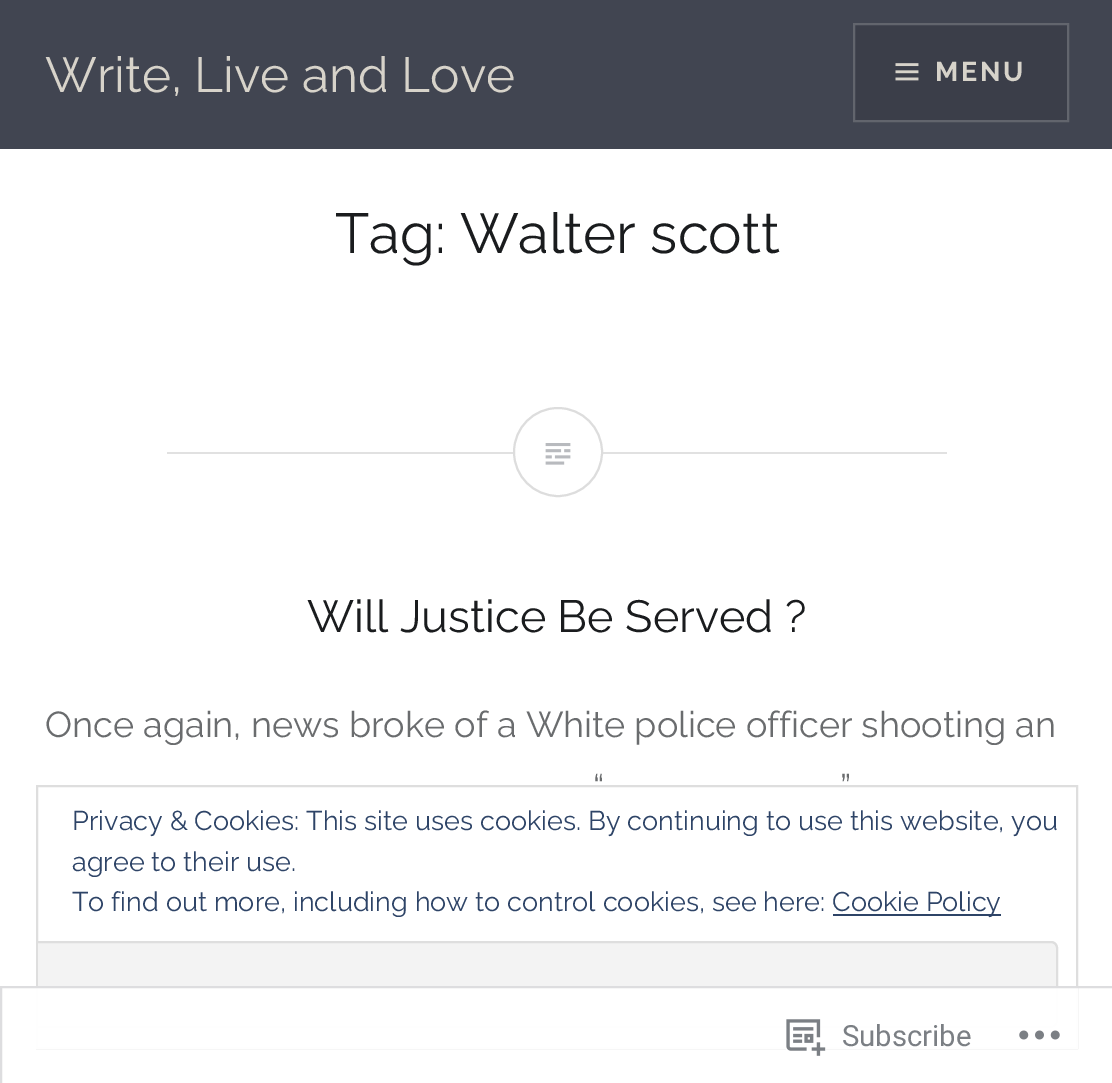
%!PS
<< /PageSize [1112 1083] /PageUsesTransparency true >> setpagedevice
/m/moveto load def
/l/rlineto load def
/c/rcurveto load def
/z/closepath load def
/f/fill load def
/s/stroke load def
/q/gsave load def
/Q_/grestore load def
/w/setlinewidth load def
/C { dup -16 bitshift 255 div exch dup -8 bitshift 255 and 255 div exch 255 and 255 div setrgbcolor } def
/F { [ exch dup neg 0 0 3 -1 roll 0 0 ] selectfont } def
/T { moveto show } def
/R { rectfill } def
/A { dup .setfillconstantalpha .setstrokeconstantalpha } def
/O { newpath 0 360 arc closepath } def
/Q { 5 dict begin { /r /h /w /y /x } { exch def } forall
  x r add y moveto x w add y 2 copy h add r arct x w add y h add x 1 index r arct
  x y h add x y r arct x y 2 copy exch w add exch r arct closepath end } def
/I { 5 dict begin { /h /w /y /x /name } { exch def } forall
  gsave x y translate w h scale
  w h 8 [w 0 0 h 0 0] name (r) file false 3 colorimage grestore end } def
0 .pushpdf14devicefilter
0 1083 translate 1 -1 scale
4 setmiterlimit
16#FFFFFF C
0 0 1112 1083 R
16#414551 C
0 0 1112 149 R
/Raleway-Regular 49.5 F
16#D7D3CA C
(Write, Live and Love) 45 92 T
16#3B3E49 C
854 24 m 214 0 l 0 97 l -214 0 l z q f Q_
16#62656D C
2 w
s
(1.rgb) 895 63 24 18 I
/Raleway-Bold 27 F
16#D7D3CA C
935 81 m 2.5 0 (MENU) ashow
/Raleway-Regular 56.25 F
16#1A1C1E C
(Tag: Walter scott) 335 253 T
16#E1E1E1 C
167 452 780 2 R
16#FFFFFF C
558 452 44 O q f Q_
16#DDDDDD C
s
(2.rgb) 545 443 26 22 I
/Raleway-Regular 45 F
16#1A1C1E C
(Will Justice Be Served ?) 307 632 T
/Raleway-Regular 36 F
16#6A6C6E C
(Once again, news broke of a White police officer shooting an) 45 737 T
(“) 593 800 T
(”) 840 800 T
16#DEDEDE C
37 786 1040 262 rectstroke
/Raleway-Regular 27 F
16#2E4467 C
(Privacy & Cookies: This site uses cookies. By continuing to use this website, you) 72 830 T
(agree to their use.) 72 871 T
(To find out more, including how to control cookies, see here:) 72 911 T
833 914 168 2 R
(Cookie Policy) 832 911 T
16#F3F3F3 C
38 941 m 1013 0 l 4 0 7 3 7 7 c 0 73 l 0 4 -3 7 -7 7 c -1013 0 l z f
q
38 788 1038 258 rectclip
16#DEDEDE C
21 942 1036 85 6 Q s
Q_
0.98 A
16#FFFFFF C
36 986 1042 63 R
16#DCDCDE C
1 987 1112 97 rectstroke
1 A
(3.rgb) 786 1019 40 37 I
/Roboto-Regular 29.25 F
16#7B7F84 C
(Subscribe) 842 1046 T
(4.rgb) 1019 1030 41 10 I
.poppdf14devicefilter showpage
